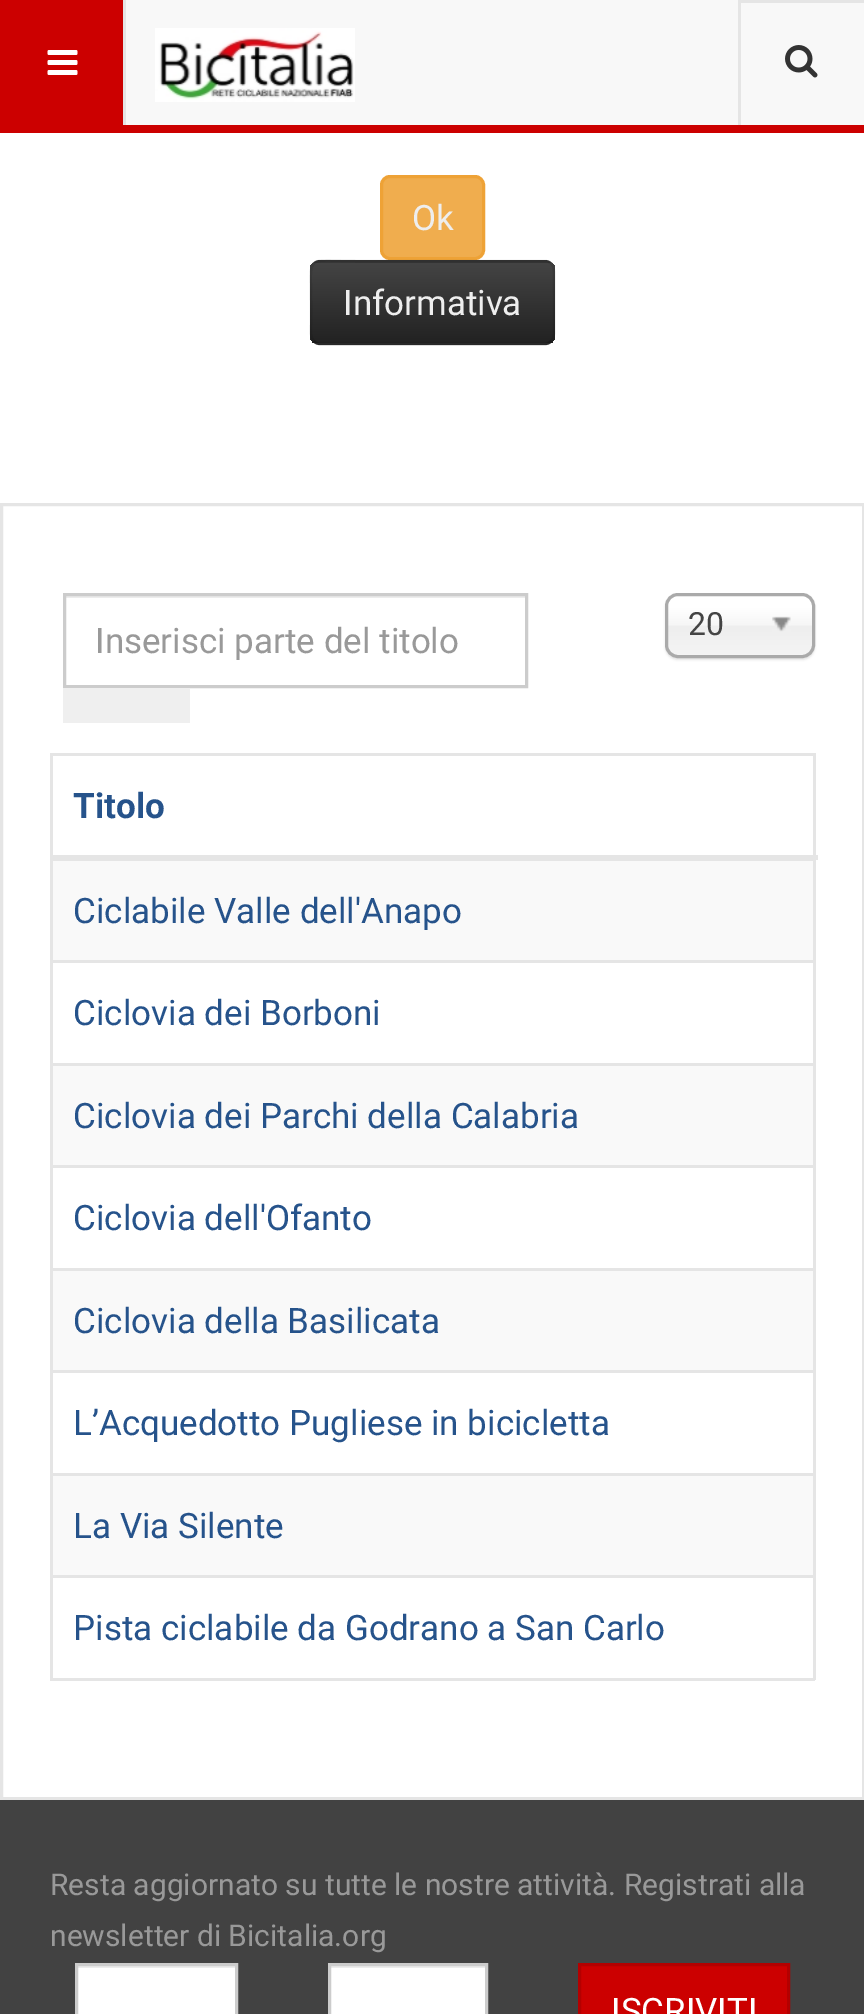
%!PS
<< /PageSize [864 2014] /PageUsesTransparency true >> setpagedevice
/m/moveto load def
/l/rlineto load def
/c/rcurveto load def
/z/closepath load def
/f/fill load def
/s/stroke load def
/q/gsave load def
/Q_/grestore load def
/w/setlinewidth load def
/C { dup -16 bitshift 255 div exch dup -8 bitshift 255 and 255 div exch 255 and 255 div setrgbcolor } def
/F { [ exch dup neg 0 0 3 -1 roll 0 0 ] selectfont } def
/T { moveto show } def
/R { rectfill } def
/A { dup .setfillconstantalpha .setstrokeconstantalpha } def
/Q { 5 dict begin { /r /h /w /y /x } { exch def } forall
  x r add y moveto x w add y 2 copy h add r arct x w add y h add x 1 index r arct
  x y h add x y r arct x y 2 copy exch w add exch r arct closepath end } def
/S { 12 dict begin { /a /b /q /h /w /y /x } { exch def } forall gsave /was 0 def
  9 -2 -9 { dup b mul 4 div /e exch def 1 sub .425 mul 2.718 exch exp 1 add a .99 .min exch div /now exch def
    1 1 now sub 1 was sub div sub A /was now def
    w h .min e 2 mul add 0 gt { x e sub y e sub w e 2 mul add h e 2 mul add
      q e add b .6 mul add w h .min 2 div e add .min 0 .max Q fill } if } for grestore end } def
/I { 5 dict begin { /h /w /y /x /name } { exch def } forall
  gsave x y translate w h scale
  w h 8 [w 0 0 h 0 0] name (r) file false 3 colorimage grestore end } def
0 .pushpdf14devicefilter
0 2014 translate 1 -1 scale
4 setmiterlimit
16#FFFFFF C
0 0 864 2014 R
16#F0AD4E C
381.5 176.5 102 82 8.5 Q q f Q_
16#EEA236 C
3 w
s
/Roboto-Regular 35 F
16#EEEEEE C
(Ok) 412 230 T
16#363636 C
310 260 245 85 10 Q f
q
310 260 245 85 10 Q clip newpath
q 310 263 m 245 0 l 0 80 l -245 0 l z clip newpath
<< /ShadingType 2 /ColorSpace /DeviceRGB /Coords [433 263 433 343] /Extend [true true] /Function << /FunctionType 2 /Domain [0 1] /C0 [.267 .267 .267] /C1 [.133 .133 .133] /N 1 >> >> shfill Q_
Q_
0.25 A
16#000000 C
2.5 w
551 341 m -1.5 2 -3.5 3 -6 3 c -225 0 l -2.5 0 -4.5 -1 -6 -3 c s
0.1 A
314 341 m -4.5 -4 -3 -12 -3 -17 c 0 -21.5 l 0 -50 -7 -41.5 46.5 -41.5 c 187.5 0 l 11 .5 9 13 9 20 c 0 43 l 0 5 1.5 13 -3 17 c s
1 A
16#EEEEEE C
(Informativa) 343 315 T
16#F8F8F8 C
126 0 738 125 R
16#CC0000 C
0 125 864 8 R
0 0 123 125 R
16#E5E5E5 C
123 0 3 125 R
(1.rgb) 47 50 31 25 I
(2.rgb) 155 28 200 74 I
740 0 124 3 R
738 0 3 125 R
(3.rgb) 785 45 33 33 I
3 w
1.5 504.5 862 1294 rectstroke
16#000000 C
665 595 150 65 13 1 .1 S
q 668 595 145 60 10 Q clip newpath
<< /ShadingType 2 /ColorSpace /DeviceRGB /Coords [740 595 740 655] /Extend [true true] /Function << /FunctionType 3 /Domain [0 1] /Functions [<< /FunctionType 2 /Domain [0 1] /C0 [1 1 1] /C1 [1 1 1] /N 1 >> << /FunctionType 2 /Domain [0 1] /C0 [1 1 1] /C1 [.965 .965 .965] /N 1 >> << /FunctionType 2 /Domain [0 1] /C0 [.965 .965 .965] /C1 [.933 .933 .933] /N 1 >> << /FunctionType 2 /Domain [0 1] /C0 [.933 .933 .933] /C1 [.957 .957 .957] /N 1 >>] /Bounds [.2 .5 .52] /Encode [0 1 0 1 0 1 0 1] >> >> shfill Q_
16#AAAAAA C
666.5 594.5 147 62 11.5 Q s
/Roboto-Regular 32 F
16#444444 C
(20) 688 635 T
(4.rgb) 772 616 19 16 I
16#ECECEC C
65 596 460 2 R
16#CCCCCC C
64.5 594.5 462 92 rectstroke
q
95 620 400 40 rectclip
/Roboto-Regular 35 F
16#999999 C
(Inserisci parte del titolo) 95 653 T
Q_
16#EFEFEF C
63 688 127 35 R
16#E5E5E5 C
50 753 765 3 R
813 753 3 927 R
50 1678 765 3 R
50 753 3 927 R
50 855 768 5 R
/Roboto-Bold 35 F
16#26538B C
(Titolo) 73 818 T
16#F9F9F9 C
53 861 760 99 R
16#E5E5E5 C
50 860 765 1 R
/Roboto-Regular 35 F
16#26538B C
(Ciclabile Valle dell'Anapo) 73 923 T
16#E5E5E5 C
50 960 765 3 R
16#26538B C
(Ciclovia dei Borboni) 73 1025 T
16#F9F9F9 C
53 1066 760 99 R
16#E5E5E5 C
50 1063 765 3 R
16#26538B C
(Ciclovia dei Parchi della Calabria) 73 1128 T
16#E5E5E5 C
50 1165 765 3 R
16#26538B C
(Ciclovia dell'Ofanto) 73 1230 T
16#F9F9F9 C
53 1271 760 99 R
16#E5E5E5 C
50 1268 765 3 R
16#26538B C
(Ciclovia della Basilicata) 73 1333 T
16#E5E5E5 C
50 1370 765 3 R
16#26538B C
(L’Acquedotto Pugliese in bicicletta) 73 1435 T
16#F9F9F9 C
53 1476 760 99 R
16#E5E5E5 C
50 1473 765 3 R
16#26538B C
(La Via Silente) 73 1538 T
16#E5E5E5 C
50 1575 765 3 R
16#26538B C
(Pista ciclabile da Godrano a San Carlo) 73 1640 T
16#424242 C
0 1800 864 214 R
/Roboto-Regular 30 F
16#999999 C
(Resta aggiornato su tutte le nostre attività. Registrati alla) 50 1895 T
(newsletter di Bicitalia.org) 50 1946 T
16#FFFFFF C
78 1968 157 46 R
16#ECECEC C
78 1966 157 2 R
16#CCCCCC C
76.5 1964.5 160 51 rectstroke
16#FFFFFF C
331 1968 154 46 R
16#ECECEC C
330 1966 155 2 R
16#CCCCCC C
329.5 1964.5 157 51 rectstroke
16#CC0000 C
579.5 1964.5 m 209 0 l 0 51 l -209 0 l z q f Q_
16#B30000 C
s
/Roboto-Regular 35 F
16#FFFFFF C
(ISCRIVITI) 611 2023 T
.poppdf14devicefilter showpage
